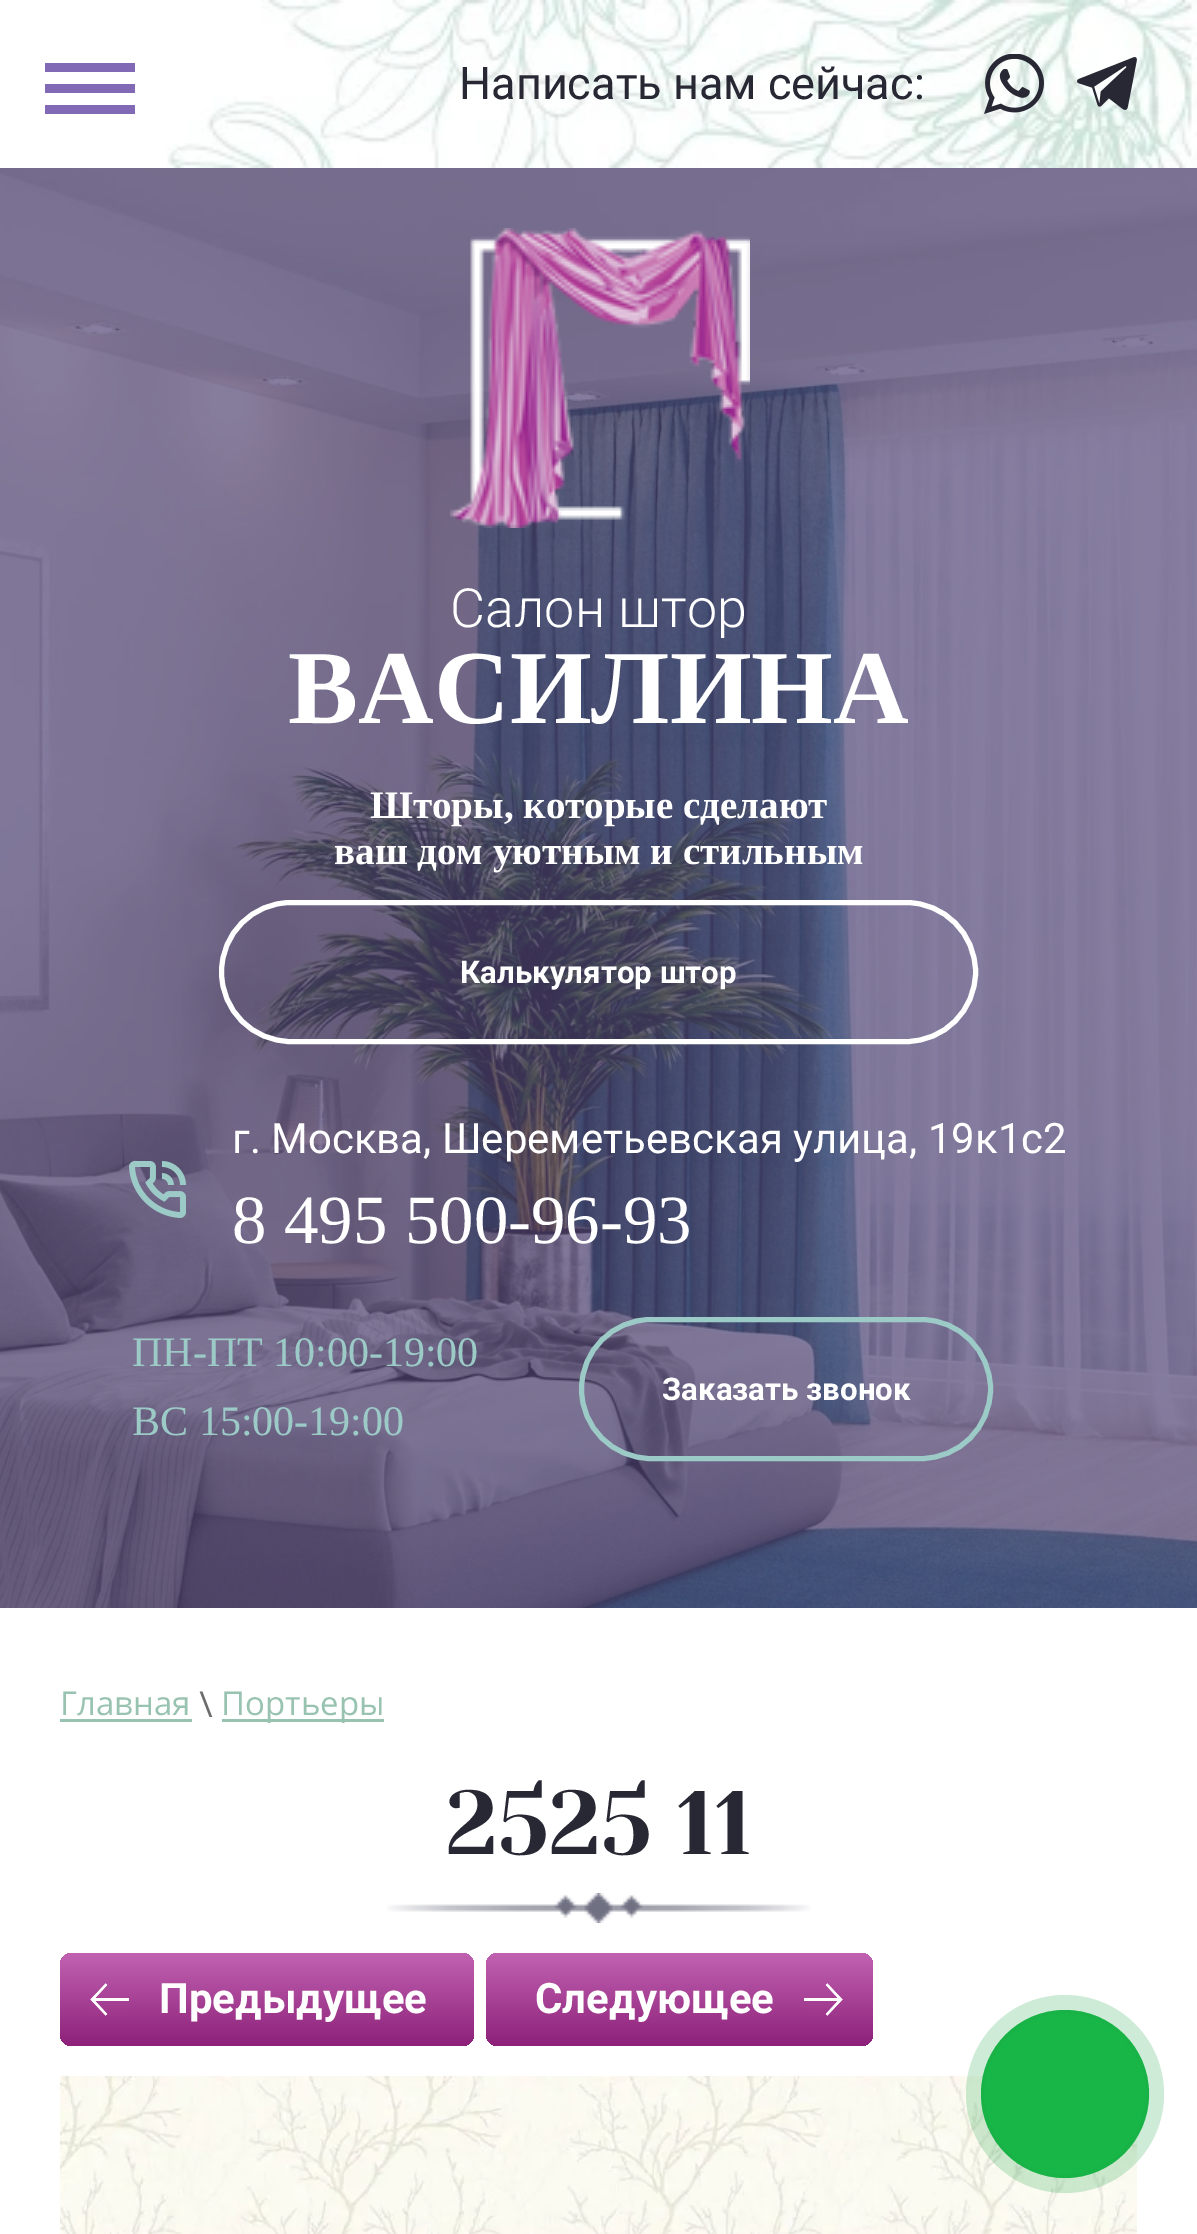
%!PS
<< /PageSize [1197 2234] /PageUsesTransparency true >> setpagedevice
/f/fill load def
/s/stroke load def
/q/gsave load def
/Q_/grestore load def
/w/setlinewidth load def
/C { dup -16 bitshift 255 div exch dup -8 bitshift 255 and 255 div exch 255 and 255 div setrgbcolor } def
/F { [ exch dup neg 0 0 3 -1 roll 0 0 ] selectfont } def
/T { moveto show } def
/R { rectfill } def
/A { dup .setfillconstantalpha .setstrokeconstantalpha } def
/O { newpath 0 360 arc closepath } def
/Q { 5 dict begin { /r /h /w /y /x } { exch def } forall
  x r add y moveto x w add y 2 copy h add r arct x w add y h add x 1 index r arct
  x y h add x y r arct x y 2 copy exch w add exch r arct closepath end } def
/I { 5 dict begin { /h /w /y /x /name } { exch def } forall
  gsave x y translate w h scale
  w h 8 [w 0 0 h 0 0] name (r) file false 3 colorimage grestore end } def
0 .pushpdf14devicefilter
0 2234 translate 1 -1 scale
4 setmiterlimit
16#FFFFFF C
0 0 1197 2234 R
(1.rgb) 167 0 1030 168 I
/Roboto-Regular 45 F
16#272833 C
(Написать нам сейчас:) 459 99 T
(2.rgb) 984 54 60 60 I
(3.rgb) 1077 57 60 53 I
(4.rgb) 0 168 1197 1440 I
(5.rgb) 450 228 300 300 I
/Roboto-Light 54 F
16#FFFFFF C
(Салон штор) 450 627 T
/LiberationSerif-Bold 105 F
(ВАСИЛИНА) 288 723 T
/LiberationSerif-Bold 39 F
(Шторы, которые сделают) 370 818 T
(ваш дом уютным и стильным) 334 864 T
5 w
221.5 902.5 754 139 69.5 Q s
/Roboto-Bold 31.25 F
(Калькулятор штор) 460 983 T
(6.rgb) 129 1161 57 57 I
/Roboto-Regular 42 F
(г. Москва, Шереметьевская улица, 19к1с2) 232 1153 T
/LiberationSerif-Regular 69 F
(8 495 500-96-93) 232 1243 T
/LiberationSerif-Regular 42 F
16#9CCAC7 C
(ПН-ПТ 10:00-19:00) 132 1366 T
(ВС 15:00-19:00) 132 1435 T
581.5 1319.5 409 139 69.5 Q s
/Roboto-Bold 31.25 F
16#FFFFFF C
(Заказать звонок) 662 1400 T
16#8269B5 C
45 63 90 9 R
45 84 90 9 R
45 105 90 9 R
/OpenSans-Regular 33 F
16#99C3B1 C
(Главная) 60 1715 T
60 1719 132 3 R
/Roboto-Regular 33 F
16#6B6B6B C
(\\) 199 1715 T
16#99C3B1 C
222 1719 162 3 R
/OpenSans-Regular 33 F
(Портьеры) 221 1715 T
(7.rgb) 387 1893 424 30 I
/YesevaOne-Regular 90 F
16#272833 C
(2525 11) 446 1854 T
q 60 1953 414 93 12 Q clip newpath
<< /ShadingType 2 /ColorSpace /DeviceRGB /Coords [267 1953 267 2046] /Extend [true true] /Function << /FunctionType 2 /Domain [0 1] /C0 [.757 .384 .694] /C1 [.553 .129 .478] /N 1 >> >> shfill Q_
(8.rgb) 90 1983 39 33 I
/Roboto-Bold 42 F
16#FFFFFF C
(Предыдущее) 159 2013 T
q 486 1953 387 93 12 Q clip newpath
<< /ShadingType 2 /ColorSpace /DeviceRGB /Coords [680 1953 680 2046] /Extend [true true] /Function << /FunctionType 2 /Domain [0 1] /C0 [.757 .384 .694] /C1 [.553 .129 .478] /N 1 >> >> shfill Q_
(Следующее) 535 2013 T
(9.rgb) 804 1983 39 33 I
(10.rgb) 60 2076 1077 158 I
16#15BB47 C
1065 2094 84 O f
0.22 A
16#1CA345 C
1065 2094 99 O f
3 w
1065 2094 82.5 O s
.poppdf14devicefilter showpage
